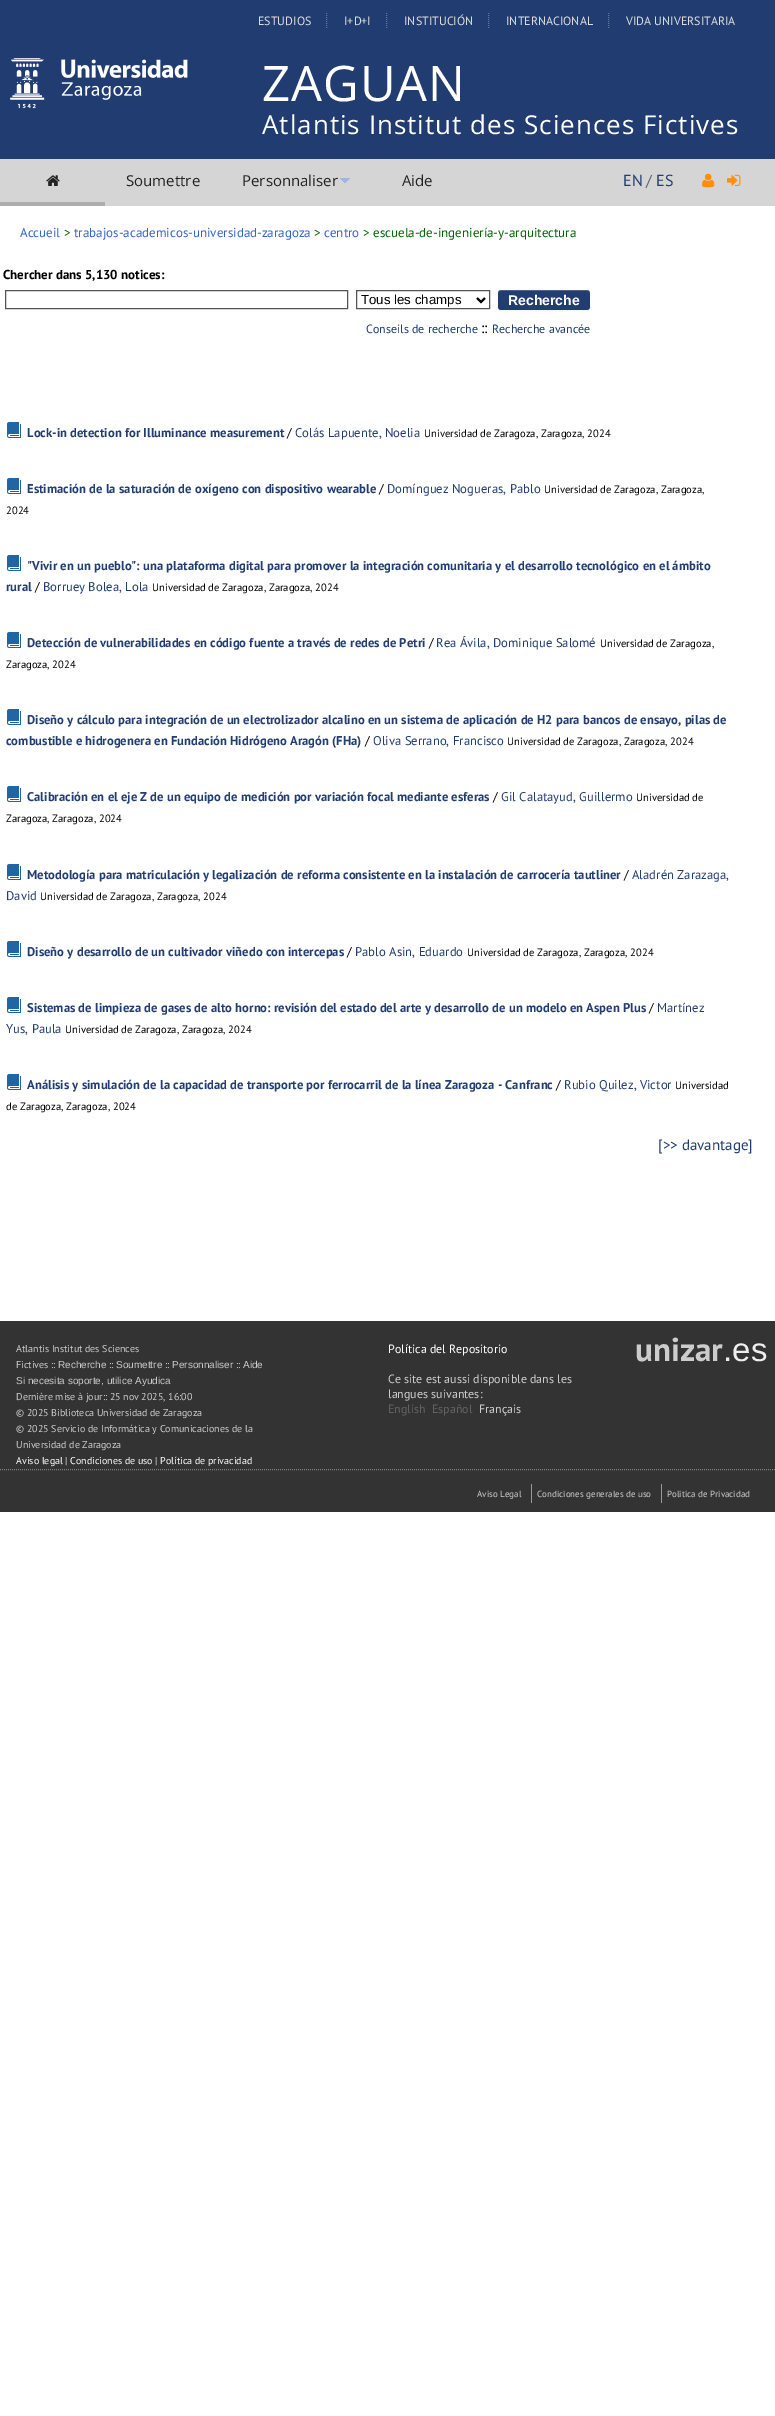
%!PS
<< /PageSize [775 2416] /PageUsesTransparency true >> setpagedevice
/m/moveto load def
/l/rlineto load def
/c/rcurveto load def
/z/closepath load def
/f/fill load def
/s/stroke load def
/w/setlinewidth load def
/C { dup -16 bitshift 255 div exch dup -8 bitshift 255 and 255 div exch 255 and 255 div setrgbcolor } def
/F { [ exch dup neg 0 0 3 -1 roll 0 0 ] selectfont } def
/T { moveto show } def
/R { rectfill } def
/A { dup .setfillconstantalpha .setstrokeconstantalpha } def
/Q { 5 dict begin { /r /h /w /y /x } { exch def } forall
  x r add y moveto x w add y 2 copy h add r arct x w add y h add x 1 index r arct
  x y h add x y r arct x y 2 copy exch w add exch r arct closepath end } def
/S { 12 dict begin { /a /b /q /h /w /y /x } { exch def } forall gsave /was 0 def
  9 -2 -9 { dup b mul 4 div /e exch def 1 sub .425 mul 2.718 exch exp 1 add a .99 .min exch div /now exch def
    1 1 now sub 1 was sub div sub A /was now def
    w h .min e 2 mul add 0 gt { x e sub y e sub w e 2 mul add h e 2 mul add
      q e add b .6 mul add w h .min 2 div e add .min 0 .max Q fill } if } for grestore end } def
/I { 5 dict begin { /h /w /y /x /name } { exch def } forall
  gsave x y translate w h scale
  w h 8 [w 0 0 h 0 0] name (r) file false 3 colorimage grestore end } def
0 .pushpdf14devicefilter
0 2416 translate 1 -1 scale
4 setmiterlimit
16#FFFFFF C
0 0 775 2416 R
16#213C70 C
0 0 775 159 R
/PTSans-Regular 12 F
16#DDDDDD C
(ESTUDIOS) 258 25 T
16#64779D C
[1 1] 0 setdash
326.5 13 m 0 15 l s
16#DDDDDD C
(I+D+I) 344 25 T
16#64779D C
386.5 13 m 0 15 l s
16#DDDDDD C
(INSTITUCIÓN) 404 25 T
16#64779D C
488.5 13 m 0 15 l s
16#DDDDDD C
(INTERNACIONAL) 506 25 T
16#64779D C
608.5 13 m 0 15 l s
16#DDDDDD C
(VIDA UNIVERSITARIA) 626 25 T
(1.rgb) 10 58 178 51 I
/OpenSans-Regular 49 F
16#FFFFFF C
262 101 m 1 0 (ZAGUAN) ashow
/OpenSans-Regular 26 F
262 134 m 1 0 (Atlantis Institut des Sciences Fictives) ashow
16#D5D5D5 C
0 159 775 47 R
16#ADADAD C
0 202 105 4 R
(2.rgb) 46 175 14 11 I
/OpenSans-Regular 15 F
16#222222 C
(Soumettre) 126 186 T
(Personnaliser) 242 186 T
(3.rgb) 340 178 10 5 I
(Aide) 402 186 T
/PTSans-Regular 16 F
16#223D72 C
(EN) 623 186 T
16#626262 C
(/) 646 186 T
16#223D72 C
(ES) 656 186 T
(4.rgb) 702 173 13 15 I
(5.rgb) 727 174 14 12 I
/PTSans-Regular 13 F
16#3366CC C
(Accueil) 20 237 T
16#006600 C
(>) 64 237 T
16#3366CC C
(trabajos-academicos-universidad-zaragoza) 74 237 T
16#006600 C
(>) 314 237 T
16#3366CC C
(centro) 324 237 T
16#006600 C
(> escuela-de-ingeniería-y-arquitectura) 363 237 T
/PTSans-Bold 13 F
16#000000 C
(Chercher dans 5,130 notices:) 3 279 T
16#555555 C
[] 0 setdash
5.5 290.5 342 18 rectstroke
356.5 290.5 133 18 rectstroke
16#000000 C
2 w
477 298 m 4 4 l 4 -4 l s
/LiberationSans-Regular 13.25 F
(Tous les champs) 361 304 T
498 291 92 20 3 1 .05 S
16#223D72 C
498 290 92 20 3 Q f
0.2 A
16#FFFFFF C
501 291 m 86 0 l 2 0 3 1 3 3 c 0 -8 -14 -4 -17 -4 c -58 0 l -3 0 -17 -4 -17 4 c 0 -2 1 -3 3 -3 c z f
/LiberationSans-Bold 14 F
1 A
(Recherche) 508 305 T
/PTSans-Regular 12 F
16#223D72 C
(Conseils de recherche) 366 333 T
/PTSans-Regular 15 F
16#000000 C
(::) 481 333 T
/PTSans-Regular 12 F
16#223D72 C
(Recherche avancée) 492 333 T
(6.rgb) 7 422 14 16 I
/PTSans-Bold 12.7 F
(Lock-in detection for Illuminance measurement) 27 437 T
/PTSans-Regular 12.7 F
16#000000 C
(/) 287 437 T
16#223D72 C
(Colás Lapuente, Noelia) 295 437 T
/PTSans-Regular 10.6 F
16#000000 C
(Universidad de Zaragoza, Zaragoza, 2024) 424 437 T
(6.rgb) 7 478 14 16 I
/PTSans-Bold 12.7 F
16#223D72 C
(Estimación de la saturación de oxígeno con dispositivo wearable) 27 493 T
/PTSans-Regular 12.7 F
16#000000 C
(/) 379 493 T
16#223D72 C
(Domínguez Nogueras, Pablo) 387 493 T
/PTSans-Regular 10.6 F
16#000000 C
(Universidad de Zaragoza, Zaragoza,) 544 493 T
(2024) 6 514 T
(6.rgb) 7 555 14 16 I
/PTSans-Bold 12.7 F
16#223D72 C
("Vivir en un pueblo": una plataforma digital para promover la integración comunitaria y el desarrollo tecnológico en el ámbito) 27 570 T
(rural) 6 591 T
/PTSans-Regular 12.7 F
16#000000 C
(/) 35 591 T
16#223D72 C
(Borruey Bolea, Lola) 43 591 T
/PTSans-Regular 10.6 F
16#000000 C
(Universidad de Zaragoza, Zaragoza, 2024) 152 591 T
(6.rgb) 7 632 14 16 I
/PTSans-Bold 12.7 F
16#223D72 C
(Detección de vulnerabilidades en código fuente a través de redes de Petri) 27 647 T
/PTSans-Regular 12.7 F
16#000000 C
(/) 429 647 T
16#223D72 C
(Rea Ávila, Dominique Salomé) 436 647 T
/PTSans-Regular 10.6 F
16#000000 C
(Universidad de Zaragoza,) 600 647 T
(Zaragoza, 2024) 6 668 T
(6.rgb) 7 709 14 16 I
/PTSans-Bold 12.7 F
16#223D72 C
(Diseño y cálculo para integración de un electrolizador alcalino en un sistema de aplicación de H2 para bancos de ensayo, pilas de) 27 724 T
(combustible e hidrogenera en Fundación Hidrógeno Aragón \(FHa\)) 6 745 T
/PTSans-Regular 12.7 F
16#000000 C
(/) 365 745 T
16#223D72 C
(Oliva Serrano, Francisco) 373 745 T
/PTSans-Regular 10.6 F
16#000000 C
(Universidad de Zaragoza, Zaragoza, 2024) 507 745 T
(6.rgb) 7 786 14 16 I
/PTSans-Bold 12.7 F
16#223D72 C
(Calibración en el eje Z de un equipo de medición por variación focal mediante esferas) 27 801 T
/PTSans-Regular 12.7 F
16#000000 C
(/) 493 801 T
16#223D72 C
(Gil Calatayud, Guillermo) 501 801 T
/PTSans-Regular 10.6 F
16#000000 C
(Universidad de) 636 801 T
(Zaragoza, Zaragoza, 2024) 6 822 T
(6.rgb) 7 864 14 16 I
/PTSans-Bold 12.7 F
16#223D72 C
(Metodología para matriculación y legalización de reforma consistente en la instalación de carrocería tautliner) 27 879 T
/PTSans-Regular 12.7 F
16#000000 C
(/) 624 879 T
16#223D72 C
(Aladrén Zarazaga,) 632 879 T
(David) 6 900 T
/PTSans-Regular 10.6 F
16#000000 C
(Universidad de Zaragoza, Zaragoza, 2024) 40 900 T
(6.rgb) 7 941 14 16 I
/PTSans-Bold 12.7 F
16#223D72 C
(Diseño y desarrollo de un cultivador viñedo con intercepas) 27 956 T
/PTSans-Regular 12.7 F
16#000000 C
(/) 347 956 T
16#223D72 C
(Pablo Asin, Eduardo) 355 956 T
/PTSans-Regular 10.6 F
16#000000 C
(Universidad de Zaragoza, Zaragoza, 2024) 467 956 T
(6.rgb) 7 997 14 16 I
/PTSans-Bold 12.7 F
16#223D72 C
(Sistemas de limpieza de gases de alto horno: revisión del estado del arte y desarrollo de un modelo en Aspen Plus) 27 1012 T
/PTSans-Regular 12.7 F
16#000000 C
(/) 649 1012 T
16#223D72 C
(Martínez) 657 1012 T
(Yus, Paula) 6 1033 T
/PTSans-Regular 10.6 F
16#000000 C
(Universidad de Zaragoza, Zaragoza, 2024) 65 1033 T
(6.rgb) 7 1074 14 16 I
/PTSans-Bold 12.7 F
16#223D72 C
(Análisis y simulación de la capacidad de transporte por ferrocarril de la línea Zaragoza - Canfranc) 27 1089 T
/PTSans-Regular 12.7 F
16#000000 C
(/) 556 1089 T
16#223D72 C
(Rubio Quilez, Victor) 564 1089 T
/PTSans-Regular 10.6 F
16#000000 C
(Universidad) 675 1089 T
(de Zaragoza, Zaragoza, 2024) 6 1110 T
/PTSans-Regular 15 F
16#223D72 C
([>> davantage]) 658 1150 T
16#333333 C
0 1321 775 191 R
/PTSans-Regular 10 F
16#CCCCCC C
(Atlantis Institut des Sciences) 16 1352 T
(Fictives ::) 16 1368 T
/LiberationSans-Regular 10 F
(Recherche) 58 1368 T
/PTSans-Regular 10 F
(::) 109 1368 T
/LiberationSans-Regular 10 F
(Soumettre) 116 1368 T
/PTSans-Regular 10 F
(::) 165 1368 T
/LiberationSans-Regular 10 F
(Personnaliser) 172 1368 T
/PTSans-Regular 10 F
(::) 236 1368 T
/LiberationSans-Regular 10 F
(Aide) 243 1368 T
(Si necesita soporte, utilice Ayudica) 16 1384 T
/PTSans-Regular 10 F
(Dernière mise à jour:: 25 nov 2025, 16:00) 16 1400 T
(© 2025 Biblioteca Universidad de Zaragoza) 16 1416 T
(© 2025 Servicio de Informática y Comunicaciones de la) 16 1432 T
(Universidad de Zaragoza) 16 1448 T
16#FFFFFF C
(Aviso legal) 16 1464 T
16#CCCCCC C
(|) 65 1464 T
16#FFFFFF C
(Condiciones de uso) 70 1464 T
16#CCCCCC C
(|) 155 1464 T
16#FFFFFF C
(Política de privacidad) 160 1464 T
/PTSans-Regular 12 F
(Política del Repositorio) 388 1353 T
16#CCCCCC C
(Ce site est aussi disponible dans les) 388 1383 T
(langues suivantes:) 388 1398 T
16#626262 C
(English) 388 1413 T
(Español) 432 1413 T
16#CCCCCC C
(Français) 479 1413 T
/PTSans-Bold 33 F
(unizar) 635 1361 T
/LiberationSans-Regular 33 F
16#EEEEEE C
(.es) 723 1361 T
16#808080 C
1 w
[1 1] 0 setdash
-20 1469.5 m 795 0 l s
/PTSans-Regular 9 F
16#CCCCCC C
(Aviso Legal) 477 1497 T
16#999999 C
531 1484 1 19 R
16#CCCCCC C
(Condiciones generales de uso) 537 1497 T
16#999999 C
661 1484 1 19 R
16#CCCCCC C
(Politica de Privacidad) 667 1497 T
.poppdf14devicefilter showpage
